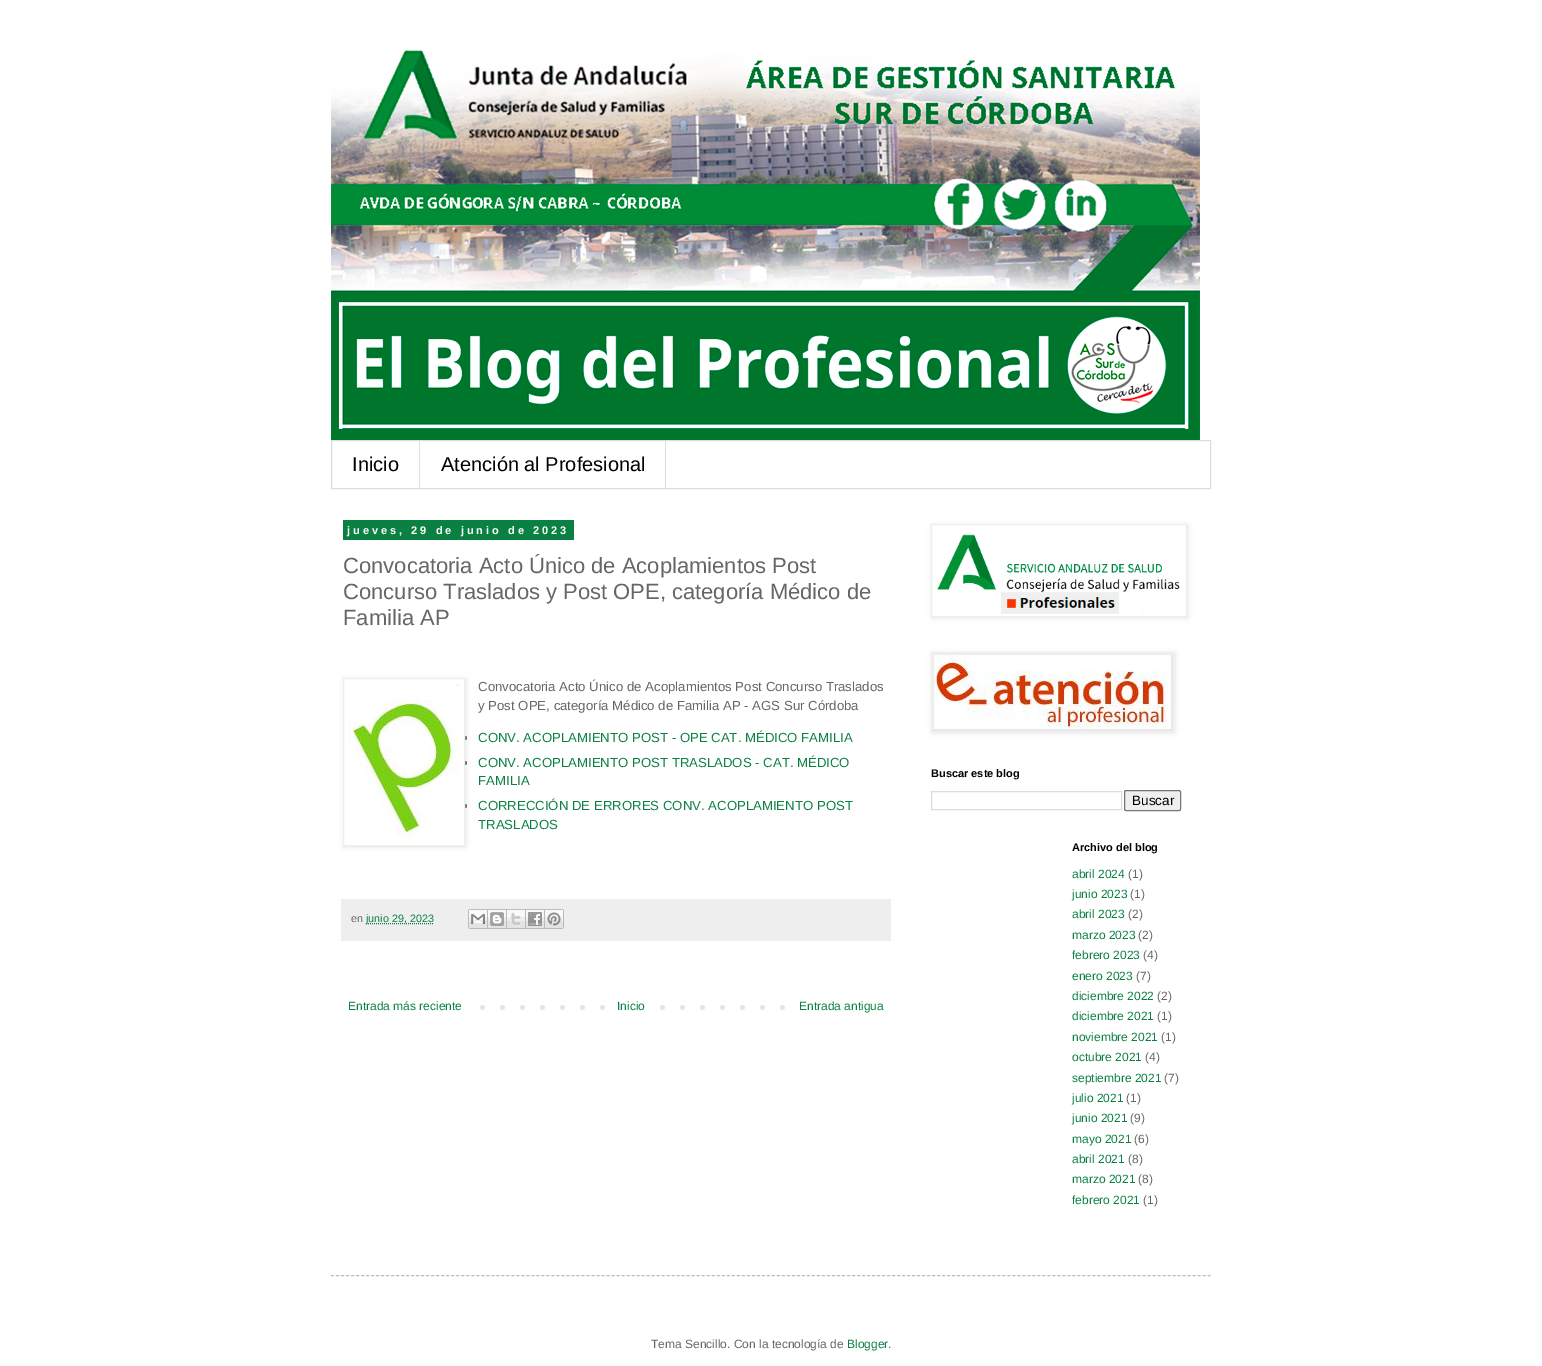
%!PS
<< /PageSize [1542 1366] /PageUsesTransparency true >> setpagedevice
/m/moveto load def
/l/rlineto load def
/z/closepath load def
/f/fill load def
/s/stroke load def
/q/gsave load def
/Q_/grestore load def
/C { dup -16 bitshift 255 div exch dup -8 bitshift 255 and 255 div exch 255 and 255 div setrgbcolor } def
/F { [ exch dup neg 0 0 3 -1 roll 0 0 ] selectfont } def
/T { moveto show } def
/R { rectfill } def
/A { dup .setfillconstantalpha .setstrokeconstantalpha } def
/O { newpath 0 360 arc closepath } def
/Q { 5 dict begin { /r /h /w /y /x } { exch def } forall
  x r add y moveto x w add y 2 copy h add r arct x w add y h add x 1 index r arct
  x y h add x y r arct x y 2 copy exch w add exch r arct closepath end } def
/S { 12 dict begin { /a /b /q /h /w /y /x } { exch def } forall gsave /was 0 def
  9 -2 -9 { dup b mul 4 div /e exch def 1 sub .425 mul 2.718 exch exp 1 add a .99 .min exch div /now exch def
    1 1 now sub 1 was sub div sub A /was now def
    w h .min e 2 mul add 0 gt { x e sub y e sub w e 2 mul add h e 2 mul add
      q e add b .6 mul add w h .min 2 div e add .min 0 .max Q fill } if } for grestore end } def
/I { 5 dict begin { /h /w /y /x /name } { exch def } forall
  gsave x y translate w h scale
  w h 8 [w 0 0 h 0 0] name (r) file false 3 colorimage grestore end } def
0 .pushpdf14devicefilter
0 1366 translate 1 -1 scale
4 setmiterlimit
16#FFFFFF C
0 0 1542 1366 R
(1.rgb) 331 50 869 390 I
16#DDDDDD C
331.5 440.5 879 48 rectstroke
419 441 1 47 R
/LiberationSans-Regular 20 F
16#000000 C
(Inicio) 352 471 T
16#DDDDDD C
665 441 1 47 R
16#000000 C
(Atención al Profesional) 441 471 T
16#0B8043 C
343 520 231 20 R
/LiberationSans-Bold 11 F
16#FFFFFF C
347 534 m 3 0 (jueves, 29 de junio de 2023) ashow
/LiberationSans-Regular 22 F
16#666666 C
(Convocatoria Acto Único de Acoplamientos Post) 343 573 T
(Concurso Traslados y Post OPE, categoría Médico de) 343 599 T
(Familia AP) 343 625 T
465 738 2 O f
465 763 2 O f
465 806 2 O f
16#000000 C
344 679 122 168 0 2.5 .1 S
16#FFFFFF C
343.5 678.5 m 121 0 l 0 167 l -121 0 l z q f Q_
16#EEEEEE C
s
(2.rgb) 349 684 110 156 I
/LiberationSans-Regular 13.2 F
16#666666 C
(Convocatoria Acto Único de Acoplamientos Post Concurso Traslados) 478 691 T
(y Post OPE, categoría Médico de Familia AP - AGS Sur Córdoba) 478 710 T
16#0B8043 C
(CONV. ACOPLAMIENTO POST - OPE CAT. MÉDICO FAMILIA) 478 742 T
(CONV. ACOPLAMIENTO POST TRASLADOS - CAT. MÉDICO) 478 767 T
(FAMILIA) 478 785 T
(CORRECCIÓN DE ERRORES CONV. ACOPLAMIENTO POST) 478 810 T
(TRASLADOS) 478 829 T
16#EEEEEE C
341 899 550 42 R
/LiberationSans-Regular 10.75 F
16#666666 C
(en) 351 922 T
16#0B8043 C
[1 1] 0 setdash
366 923.5 m 68 0 l s
(junio 29, 2023) 366 922 T
(3.rgb) 468 909 20 20 I
(4.rgb) 488 909 19 20 I
(5.rgb) 507 909 19 20 I
(6.rgb) 526 909 19 20 I
(7.rgb) 545 909 19 20 I
(8.rgb) 480 1005 305 5 I
/LiberationSans-Regular 12 F
(Entrada más reciente) 348 1010 T
16#FFFFFF C
620 1005 26 5 R
16#0B8043 C
(Inicio) 617 1010 T
(Entrada antigua) 799 1010 T
q
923 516 m 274 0 l 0 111 l -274 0 l z 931 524 m 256 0 l 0 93 l -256 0 l z eoclip newpath
16#000000 C
932 525 256 93 0 2.5 .1 S
Q_
16#EEEEEE C
[] 0 setdash
931.5 524.5 255 92 rectstroke
(9.rgb) 937 534 243 80 I
16#000000 C
932 653 243 80 0 2.5 .1 S
16#EEEEEE C
931.5 652.5 242 79 rectstroke
(10.rgb) 934 655 237 74 I
/LiberationSans-Bold 11 F
16#000000 C
(Buscar este blog) 931 777 T
16#DDDDDD C
931.5 791.5 190 18 rectstroke
16#EFEFEF C
1124.5 790.5 56 20 1.5 Q q f Q_
16#767676 C
s
/LiberationSans-Regular 13.5 F
16#000000 C
(Buscar) 1132 805 T
/LiberationSans-Bold 11 F
(Archivo del blog) 1072 851 T
/LiberationSans-Regular 12 F
16#0B8043 C
(abril 2024) 1072 878 T
16#666666 C
(\(1\)) 1128 878 T
16#0B8043 C
(junio 2023) 1072 898 T
16#666666 C
(\(1\)) 1130 898 T
16#0B8043 C
(abril 2023) 1072 918 T
16#666666 C
(\(2\)) 1128 918 T
16#0B8043 C
(marzo 2023) 1072 939 T
16#666666 C
(\(2\)) 1138 939 T
16#0B8043 C
(febrero 2023) 1072 959 T
16#666666 C
(\(4\)) 1143 959 T
16#0B8043 C
(enero 2023) 1072 980 T
16#666666 C
(\(7\)) 1136 980 T
16#0B8043 C
(diciembre 2022) 1072 1000 T
16#666666 C
(\(2\)) 1157 1000 T
16#0B8043 C
(diciembre 2021) 1072 1020 T
16#666666 C
(\(1\)) 1157 1020 T
16#0B8043 C
(noviembre 2021) 1072 1041 T
16#666666 C
(\(1\)) 1161 1041 T
16#0B8043 C
(octubre 2021) 1072 1061 T
16#666666 C
(\(4\)) 1145 1061 T
16#0B8043 C
(septiembre 2021) 1072 1082 T
16#666666 C
(\(7\)) 1164 1082 T
16#0B8043 C
(julio 2021) 1072 1102 T
16#666666 C
(\(1\)) 1126 1102 T
16#0B8043 C
(junio 2021) 1072 1122 T
16#666666 C
(\(9\)) 1130 1122 T
16#0B8043 C
(mayo 2021) 1072 1143 T
16#666666 C
(\(6\)) 1134 1143 T
16#0B8043 C
(abril 2021) 1072 1163 T
16#666666 C
(\(8\)) 1128 1163 T
16#0B8043 C
(marzo 2021) 1072 1183 T
16#666666 C
(\(8\)) 1138 1183 T
16#0B8043 C
(febrero 2021) 1072 1204 T
16#666666 C
(\(1\)) 1143 1204 T
16#BBBBBB C
[3 2.01] 0 setdash
331 1275.5 m 880 0 l s
16#666666 C
(Tema Sencillo. Con la tecnología de) 651 1348 T
16#0B8043 C
(Blogger) 847 1348 T
16#666666 C
(.) 888 1348 T
.poppdf14devicefilter showpage
